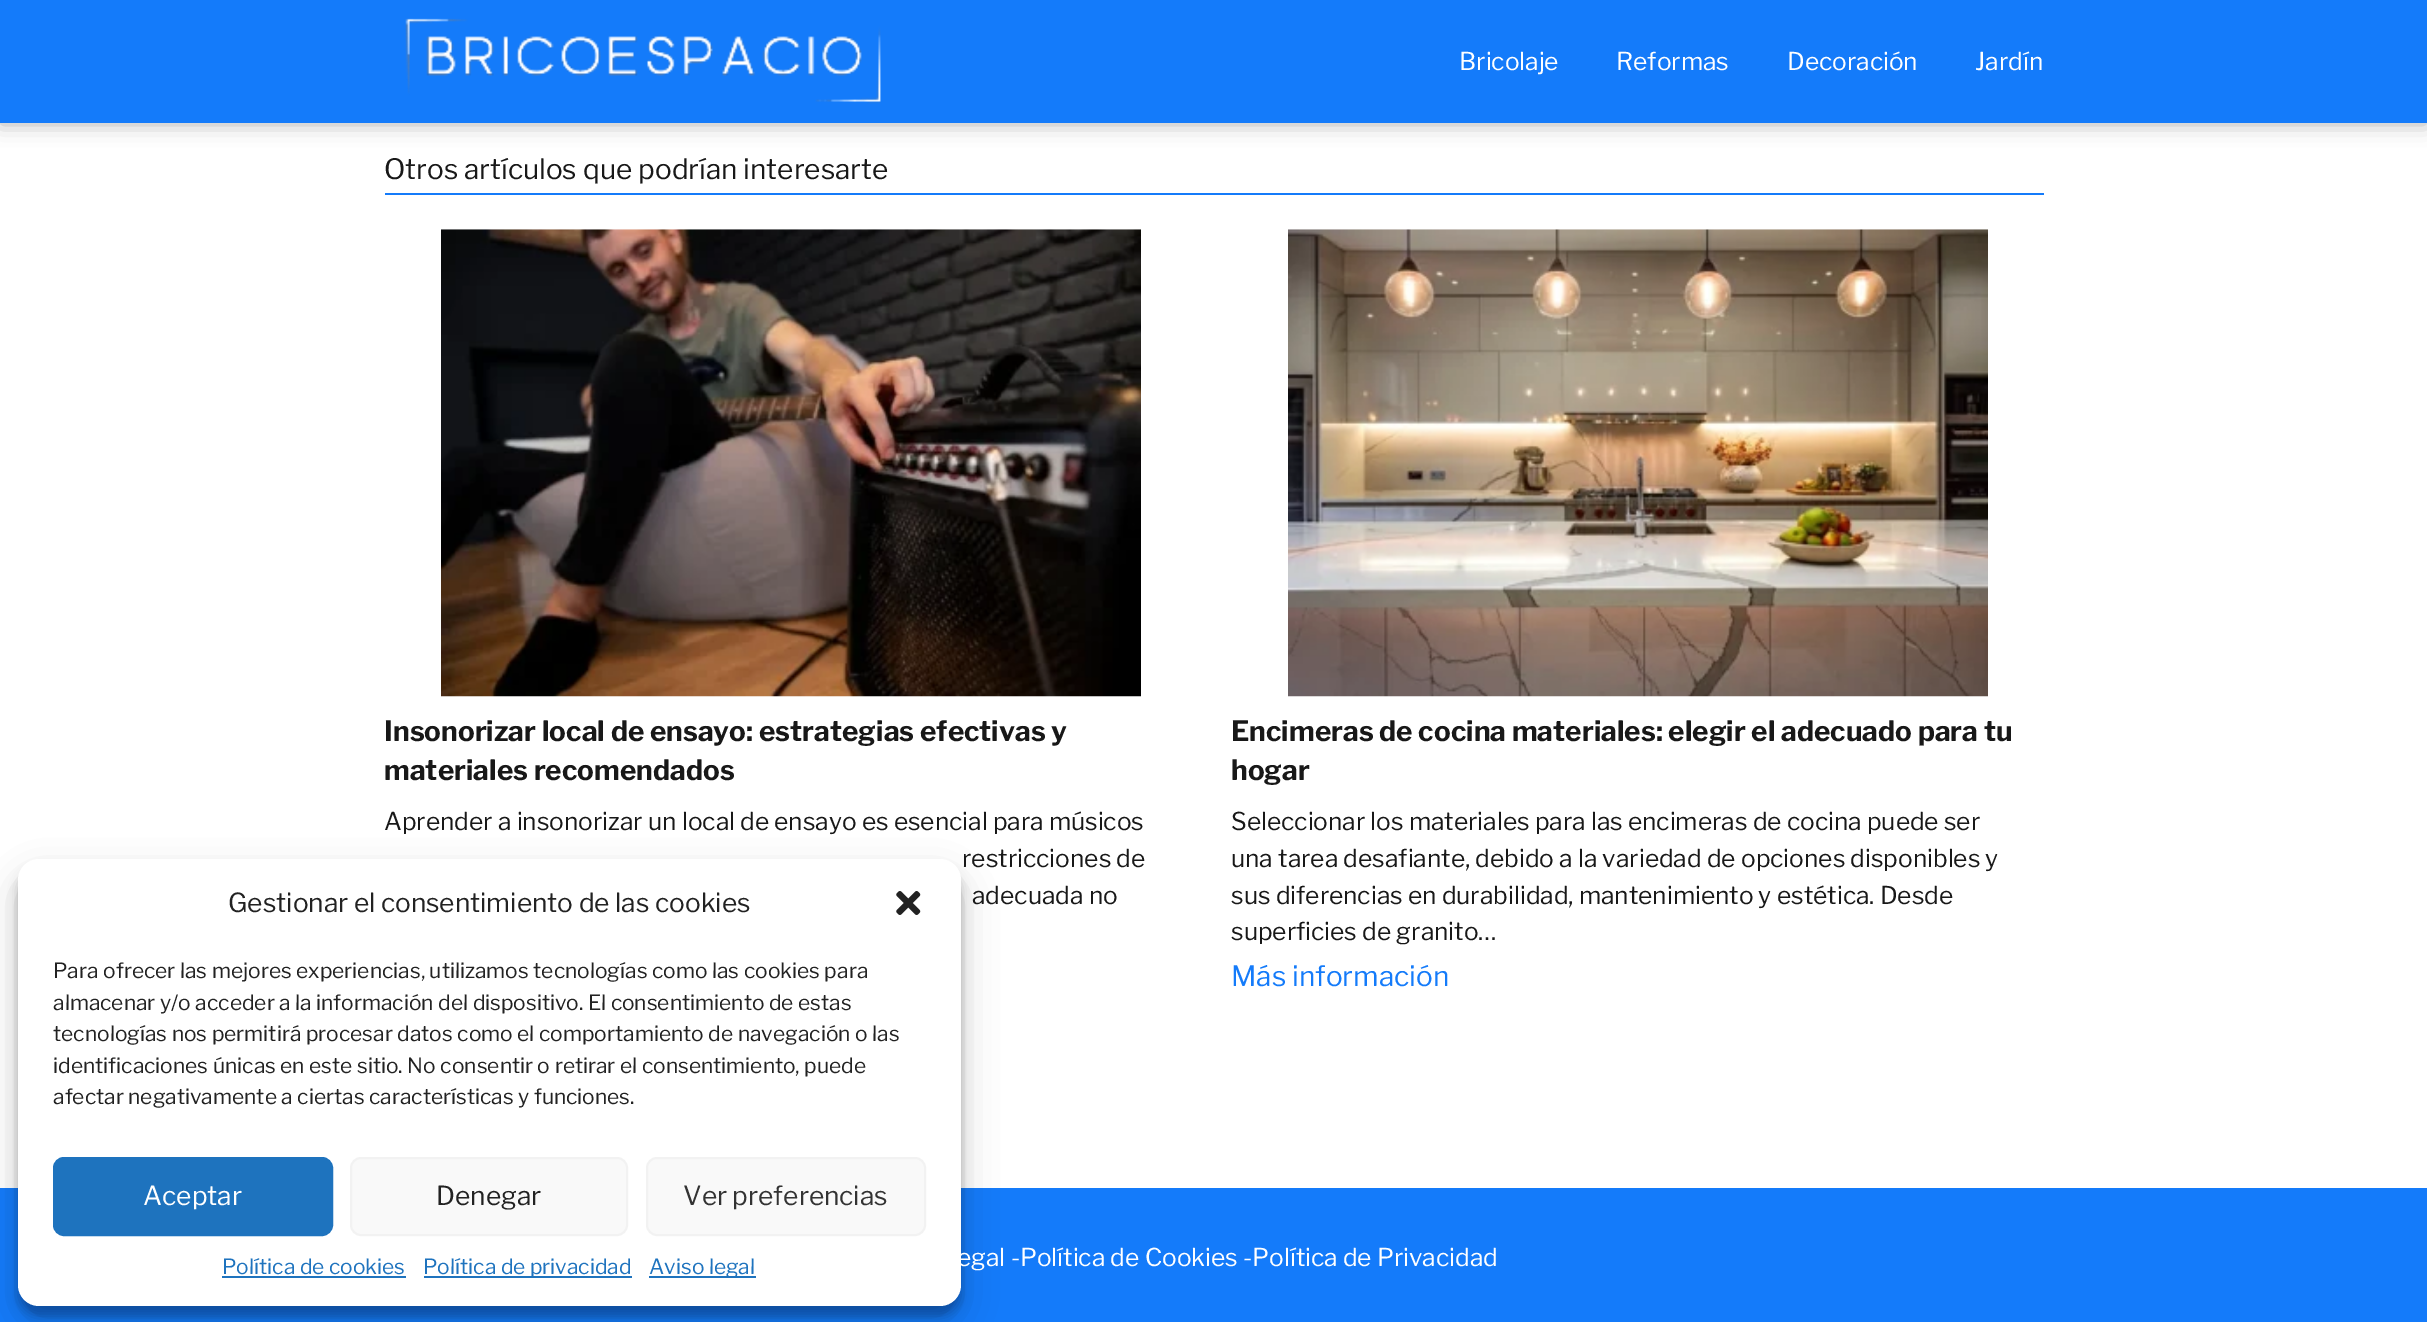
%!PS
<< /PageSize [2427 1322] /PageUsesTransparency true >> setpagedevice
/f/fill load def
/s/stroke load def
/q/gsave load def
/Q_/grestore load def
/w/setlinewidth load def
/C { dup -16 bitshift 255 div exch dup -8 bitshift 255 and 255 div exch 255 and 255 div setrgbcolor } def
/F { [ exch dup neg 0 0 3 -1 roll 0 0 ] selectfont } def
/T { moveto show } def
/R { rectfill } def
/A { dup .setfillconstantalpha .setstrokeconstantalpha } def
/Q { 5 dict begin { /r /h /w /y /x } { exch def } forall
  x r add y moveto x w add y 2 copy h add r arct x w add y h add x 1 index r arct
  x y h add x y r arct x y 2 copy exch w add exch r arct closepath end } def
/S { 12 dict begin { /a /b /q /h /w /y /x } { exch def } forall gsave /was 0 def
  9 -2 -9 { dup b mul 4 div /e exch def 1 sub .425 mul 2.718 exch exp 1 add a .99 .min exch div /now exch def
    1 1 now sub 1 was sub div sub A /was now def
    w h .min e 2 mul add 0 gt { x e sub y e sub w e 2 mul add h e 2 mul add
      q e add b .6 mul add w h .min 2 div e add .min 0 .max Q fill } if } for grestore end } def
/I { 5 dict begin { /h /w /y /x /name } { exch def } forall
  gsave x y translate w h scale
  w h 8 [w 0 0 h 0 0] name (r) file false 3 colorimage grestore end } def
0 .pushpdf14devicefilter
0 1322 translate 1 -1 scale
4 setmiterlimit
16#FFFFFF C
0 0 2427 1322 R
16#000000 C
0 2 2427 122 0 10.5 .3 S
16#147BFA C
0 0 2427 123 R
(1.rgb) 405 18 476 86 I
/LibreFranklin-Thin 24.5 F
16#FFFFFF C
(Bricolaje) 1459 70 T
(Reformas) 1616 70 T
(Decoración) 1787 70 T
(Jardín) 1975 70 T
16#147BFA C
385 193 1659 2 R
/LibreFranklin-Thin 28 F
16#181818 C
(Otros artículos que podrían interesarte) 384 179 T
(2.rgb) 441 229 700 468 I
/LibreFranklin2-Thin 28 F
(Insonorizar local de ensayo: estrategias efectivas y) 384 741 T
(materiales recomendados) 384 780 T
/LibreFranklin-Thin 24.5 F
(Aprender a insonorizar un local de ensayo es esencial para músicos) 384 830 T
(restricciones de) 962 867 T
(adecuada no) 972 904 T
(3.rgb) 1288 229 700 468 I
/LibreFranklin2-Thin 28 F
(Encimeras de cocina materiales: elegir el adecuado para tu) 1231 741 T
(hogar) 1231 780 T
/LibreFranklin-Thin 24.5 F
(Seleccionar los materiales para las encimeras de cocina puede ser) 1231 830 T
(una tarea desafiante, debido a la variedad de opciones disponibles y) 1231 867 T
(sus diferencias en durabilidad, mantenimiento y estética. Desde) 1231 904 T
(superficies de granito…) 1231 940 T
/LibreFranklin-Thin 28 F
16#147BFA C
(Más información) 1231 986 T
0 1188 2427 134 R
16#000000 C
18 870 943 446 21 5 .23 S
18 877 943 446 21 17.5 .19 S
16#FFFFFF C
18 859 943 447 21 Q f
/LibreFranklin-Thin 26.25 F
16#222222 C
(Gestionar el consentimiento de las cookies) 228 912 T
(4.rgb) 896 891 25 24 I
/LibreFranklin-Thin 21 F
(Para ofrecer las mejores experiencias, utilizamos tecnologías como las cookies para) 53 978 T
(almacenar y/o acceder a la información del dispositivo. El consentimiento de estas) 53 1010 T
(tecnologías nos permitirá procesar datos como el comportamiento de navegación o las) 53 1041 T
(identificaciones únicas en este sitio. No consentir o retirar el consentimiento, puede) 53 1073 T
(afectar negativamente a ciertas características y funciones.) 53 1104 T
16#1E73BE C
54 1158 278 77 10 Q q f Q_
2 w
s
/LibreFranklin-Thin 26.25 F
16#FFFFFF C
(Aceptar) 143 1205 T
16#F9F9F9 C
351 1158 276 77 10 Q q f Q_
16#F2F2F2 C
s
16#222222 C
(Denegar) 436 1205 T
16#F9F9F9 C
647 1158 278 77 10 Q q f Q_
16#F2F2F2 C
s
16#333333 C
(Ver preferencias) 683 1205 T
/LibreFranklin-Thin 21 F
16#1E73BE C
(Política de cookies) 222 1274 T
222 1276 184 2 R
424 1276 208 2 R
(Política de privacidad) 423 1274 T
649 1276 107 2 R
(Aviso legal) 649 1274 T
/LibreFranklin-Thin 24.5 F
16#FFFFFF C
(egal -Política de Cookies -Política de Privacidad) 957 1266 T
.poppdf14devicefilter showpage
